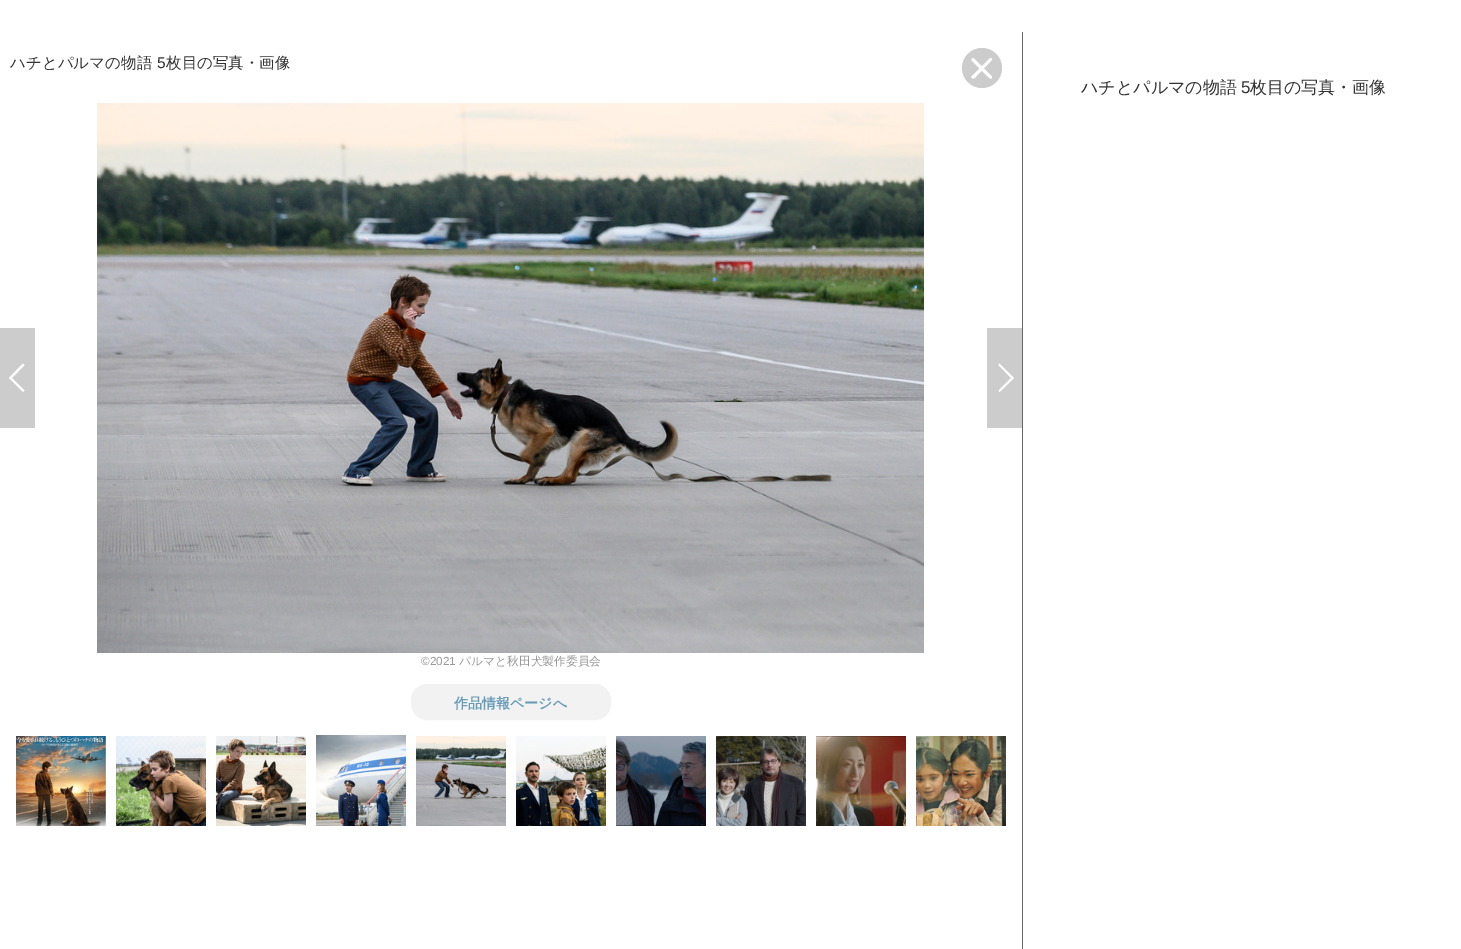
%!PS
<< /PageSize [1461 949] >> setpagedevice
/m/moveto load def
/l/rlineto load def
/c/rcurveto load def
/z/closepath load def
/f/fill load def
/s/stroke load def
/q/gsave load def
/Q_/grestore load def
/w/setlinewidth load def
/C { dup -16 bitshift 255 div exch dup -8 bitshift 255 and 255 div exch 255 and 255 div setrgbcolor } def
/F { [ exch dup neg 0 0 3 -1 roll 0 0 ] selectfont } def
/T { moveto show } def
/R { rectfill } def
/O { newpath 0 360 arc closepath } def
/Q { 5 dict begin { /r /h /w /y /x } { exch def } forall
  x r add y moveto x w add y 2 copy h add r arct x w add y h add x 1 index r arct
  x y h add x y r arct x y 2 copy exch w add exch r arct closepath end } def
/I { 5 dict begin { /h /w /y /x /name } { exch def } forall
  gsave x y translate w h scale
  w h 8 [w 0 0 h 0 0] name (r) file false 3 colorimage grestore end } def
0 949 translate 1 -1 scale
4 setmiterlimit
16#FFFFFF C
0 0 1461 949 R
16#666666 C
1022 32 1 917 R
/WenQuanYiZenHei-Medium 15.5 F
16#333333 C
(ハチとパルマの物語) 10 68 T
/LiberationSans-Regular 15.5 F
(5) 157 68 T
/WenQuanYiZenHei-Medium 15.5 F
(枚目の写真・画像) 166 68 T
16#CCCCCC C
982 68 20 O f
16#FFFFFF C
972 76 m 17.5 -17.5 l 1.5 -.5 l 3 .5 -.5 3.5 -2.5 5.5 c -11.5 12 l -.5 .5 -3.5 4.5 -5 2.5 c -1 -.5 -1 -1.5 0 -2 c z f
974 58.5 m 18 18 l 0 1 l -.5 3 -3.5 -.5 -5.5 -2 c -12 -12 l 0 -.5 -4.5 -3.5 -2.5 -5 c .5 -.5 1.5 -.5 2 0 c z f
(1.rgb) 97 103 827 550 I
/LiberationSans-Regular 11.75 F
16#999999 C
(©2021) 421 665 T
/WenQuanYiZenHei-Medium 11.75 F
(パルマと秋田犬製作委員会) 459 665 T
16#CCCCCC C
0 328 35 100 R
16#FFFFFF C
23 392 m -14 -14 l 1.5 -1.5 l 14 14 l z f
10.5 379.5 m -1.5 -1.5 l 14 -14.5 l 1.5 1.5 l z f
16#CCCCCC C
987 328 35 100 R
16#FFFFFF C
999.5 363.5 m 14.5 14.5 l -1.5 1.5 l -14 -14.5 l z f
1012.5 376.5 m 1.5 1.5 l -14.5 14 l -1 -1.5 l z f
16#F2F2F2 C
412 685 198 34 15 Q q f Q_
2 w
s
/WenQuanYiZenHei-Bold 14 F
16#689BB5 C
(作品情報ページへ) 454 708 T
(2.rgb) 16 736 90 90 I
(3.rgb) 116 736 90 90 I
(4.rgb) 216 736 90 90 I
(5.rgb) 316 735 90 91 I
(6.rgb) 416 736 90 90 I
(7.rgb) 516 736 90 90 I
(8.rgb) 616 736 90 90 I
(9.rgb) 716 736 90 90 I
(10.rgb) 816 736 90 90 I
(11.rgb) 916 736 90 90 I
/WenQuanYiZenHei-Medium 17 F
16#333333 C
(ハチとパルマの物語) 1081 93 T
/LiberationSans-Regular 17 F
(5) 1241 93 T
/WenQuanYiZenHei-Medium 17 F
(枚目の写真・画像) 1250 93 T
showpage
